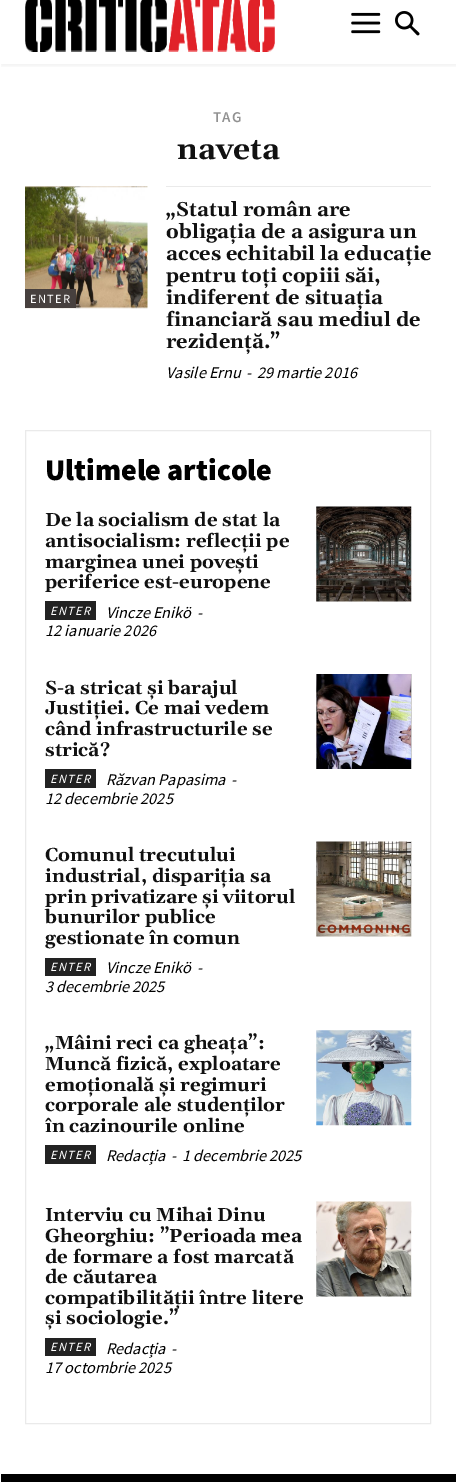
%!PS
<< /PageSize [456 1482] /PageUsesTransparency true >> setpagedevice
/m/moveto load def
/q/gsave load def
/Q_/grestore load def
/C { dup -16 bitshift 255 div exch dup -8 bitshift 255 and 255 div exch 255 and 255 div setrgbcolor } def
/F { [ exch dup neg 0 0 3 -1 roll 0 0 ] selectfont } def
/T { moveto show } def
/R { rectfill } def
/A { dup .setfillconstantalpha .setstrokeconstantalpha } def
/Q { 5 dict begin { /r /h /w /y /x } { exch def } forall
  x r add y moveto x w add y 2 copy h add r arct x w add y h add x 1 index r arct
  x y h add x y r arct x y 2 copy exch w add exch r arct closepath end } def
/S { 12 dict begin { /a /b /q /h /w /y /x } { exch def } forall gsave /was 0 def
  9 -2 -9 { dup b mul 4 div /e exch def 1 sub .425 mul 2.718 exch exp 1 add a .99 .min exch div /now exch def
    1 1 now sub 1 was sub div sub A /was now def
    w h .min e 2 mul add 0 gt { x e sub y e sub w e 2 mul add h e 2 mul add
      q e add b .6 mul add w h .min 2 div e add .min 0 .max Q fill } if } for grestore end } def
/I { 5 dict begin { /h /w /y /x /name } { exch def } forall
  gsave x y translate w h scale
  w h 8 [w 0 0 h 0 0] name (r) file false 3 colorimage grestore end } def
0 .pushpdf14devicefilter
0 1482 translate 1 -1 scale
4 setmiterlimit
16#FFFFFF C
0 0 456 1482 R
(1.rgb) 25 0 250 52 I
(2.rgb) 351 12 30 22 I
(3.rgb) 395 11 25 25 I
q
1 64 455 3 rectclip
16#000000 C
1 -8 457 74 0 2.5 .06 S
Q_
/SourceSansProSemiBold-SemiBold 15 F
16#919191 C
213 122 m 1.25 0 (TAG) ashow
/Gelasio-Bold 30 F
16#111111 C
(naveta) 177 159 T
(4.rgb) 25 186 123 123 I
16#47403E C
25 289 51 19 R
/SourceSansPro-Regular 12.5 F
16#FFFFFF C
30 303 m 1.25 0 (ENTER) ashow
16#EAEAEA C
166 186 265 1 R
/Gelasio-Bold 20 F
16#111111 C
(„Statul român are) 166 216 T
(obligația de a asigura un) 166 238 T
(acces echitabil la educație) 166 260 T
(pentru toți copiii săi,) 166 282 T
(indiferent de situația) 166 304 T
(financiară sau mediul de) 166 326 T
(rezidență.”) 166 348 T
/SourceSansPro-Italic 16.25 F
16#000000 C
(Vasile Ernu) 166 378 T
(-) 246 378 T
(29 martie 2016) 257 378 T
16#EAEAEA C
25.5 430.5 405 993 rectstroke
/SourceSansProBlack-Black 30 F
16#000000 C
(Ultimele articole) 45 480 T
/Gelasio-Bold 18.75 F
16#111111 C
(De la socialism de stat la) 45 526 T
(antisocialism: reflecții pe) 45 547 T
(marginea unei povești) 45 568 T
(periferice est-europene) 45 588 T
/SourceSansPro-Italic 16.25 F
16#000000 C
(Vincze Enikö) 106 618 T
(-) 197 618 T
(12 ianuarie 2026) 45 636 T
16#222222 C
45 601 51 19 R
/SourceSansPro-Italic 12.5 F
16#FFFFFF C
50 615 m 1.25 0 (ENTER) ashow
(5.rgb) 316 506 96 96 I
/Gelasio-Bold 18.75 F
16#111111 C
(S-a stricat și barajul) 45 694 T
(Justiției. Ce mai vedem) 45 714 T
(când infrastructurile se) 45 735 T
(strică?) 45 756 T
/SourceSansPro-Italic 16.25 F
16#000000 C
(Răzvan Papasima) 106 785 T
(-) 231 785 T
(12 decembrie 2025) 45 804 T
16#222222 C
45 769 51 19 R
/SourceSansPro-Italic 12.5 F
16#FFFFFF C
50 783 m 1.25 0 (ENTER) ashow
(6.rgb) 316 674 96 95 I
/Gelasio-Bold 18.75 F
16#111111 C
(Comunul trecutului) 45 861 T
(industrial, dispariția sa) 45 882 T
(prin privatizare și viitorul) 45 903 T
(bunurilor publice) 45 923 T
(gestionate în comun) 45 944 T
/SourceSansPro-Italic 16.25 F
16#000000 C
(Vincze Enikö) 106 973 T
(-) 197 973 T
(3 decembrie 2025) 45 992 T
16#222222 C
45 958 51 18 R
/SourceSansPro-Italic 12.5 F
16#FFFFFF C
50 971 m 1.25 0 (ENTER) ashow
(7.rgb) 316 841 96 96 I
/Gelasio-Bold 18.75 F
16#111111 C
(„Mâini reci ca gheața”:) 45 1049 T
(Muncă fizică, exploatare) 45 1070 T
(emoțională și regimuri) 45 1091 T
(corporale ale studenților) 45 1111 T
(în cazinourile online) 45 1132 T
16#222222 C
45 1145 51 19 R
/SourceSansPro-Italic 12.5 F
16#FFFFFF C
50 1159 m 1.25 0 (ENTER) ashow
/SourceSansPro-Italic 16.25 F
16#000000 C
(Redacția) 106 1161 T
(-) 171 1161 T
(1 decembrie 2025) 182 1161 T
(8.rgb) 316 1030 96 96 I
/Gelasio-Bold 18.75 F
16#111111 C
(Interviu cu Mihai Dinu) 45 1221 T
(Gheorghiu: ”Perioada mea) 45 1242 T
(de formare a fost marcată) 45 1263 T
(de căutarea) 45 1283 T
(compatibilității între litere) 45 1304 T
(și sociologie.”) 45 1324 T
/SourceSansPro-Italic 16.25 F
16#000000 C
(Redacția) 106 1354 T
(-) 171 1354 T
(17 octombrie 2025) 45 1373 T
16#222222 C
45 1338 51 18 R
/SourceSansPro-Italic 12.5 F
16#FFFFFF C
50 1351 m 1.25 0 (ENTER) ashow
(9.rgb) 316 1201 96 96 I
16#000000 C
1 1474 455 8 R
.poppdf14devicefilter showpage
